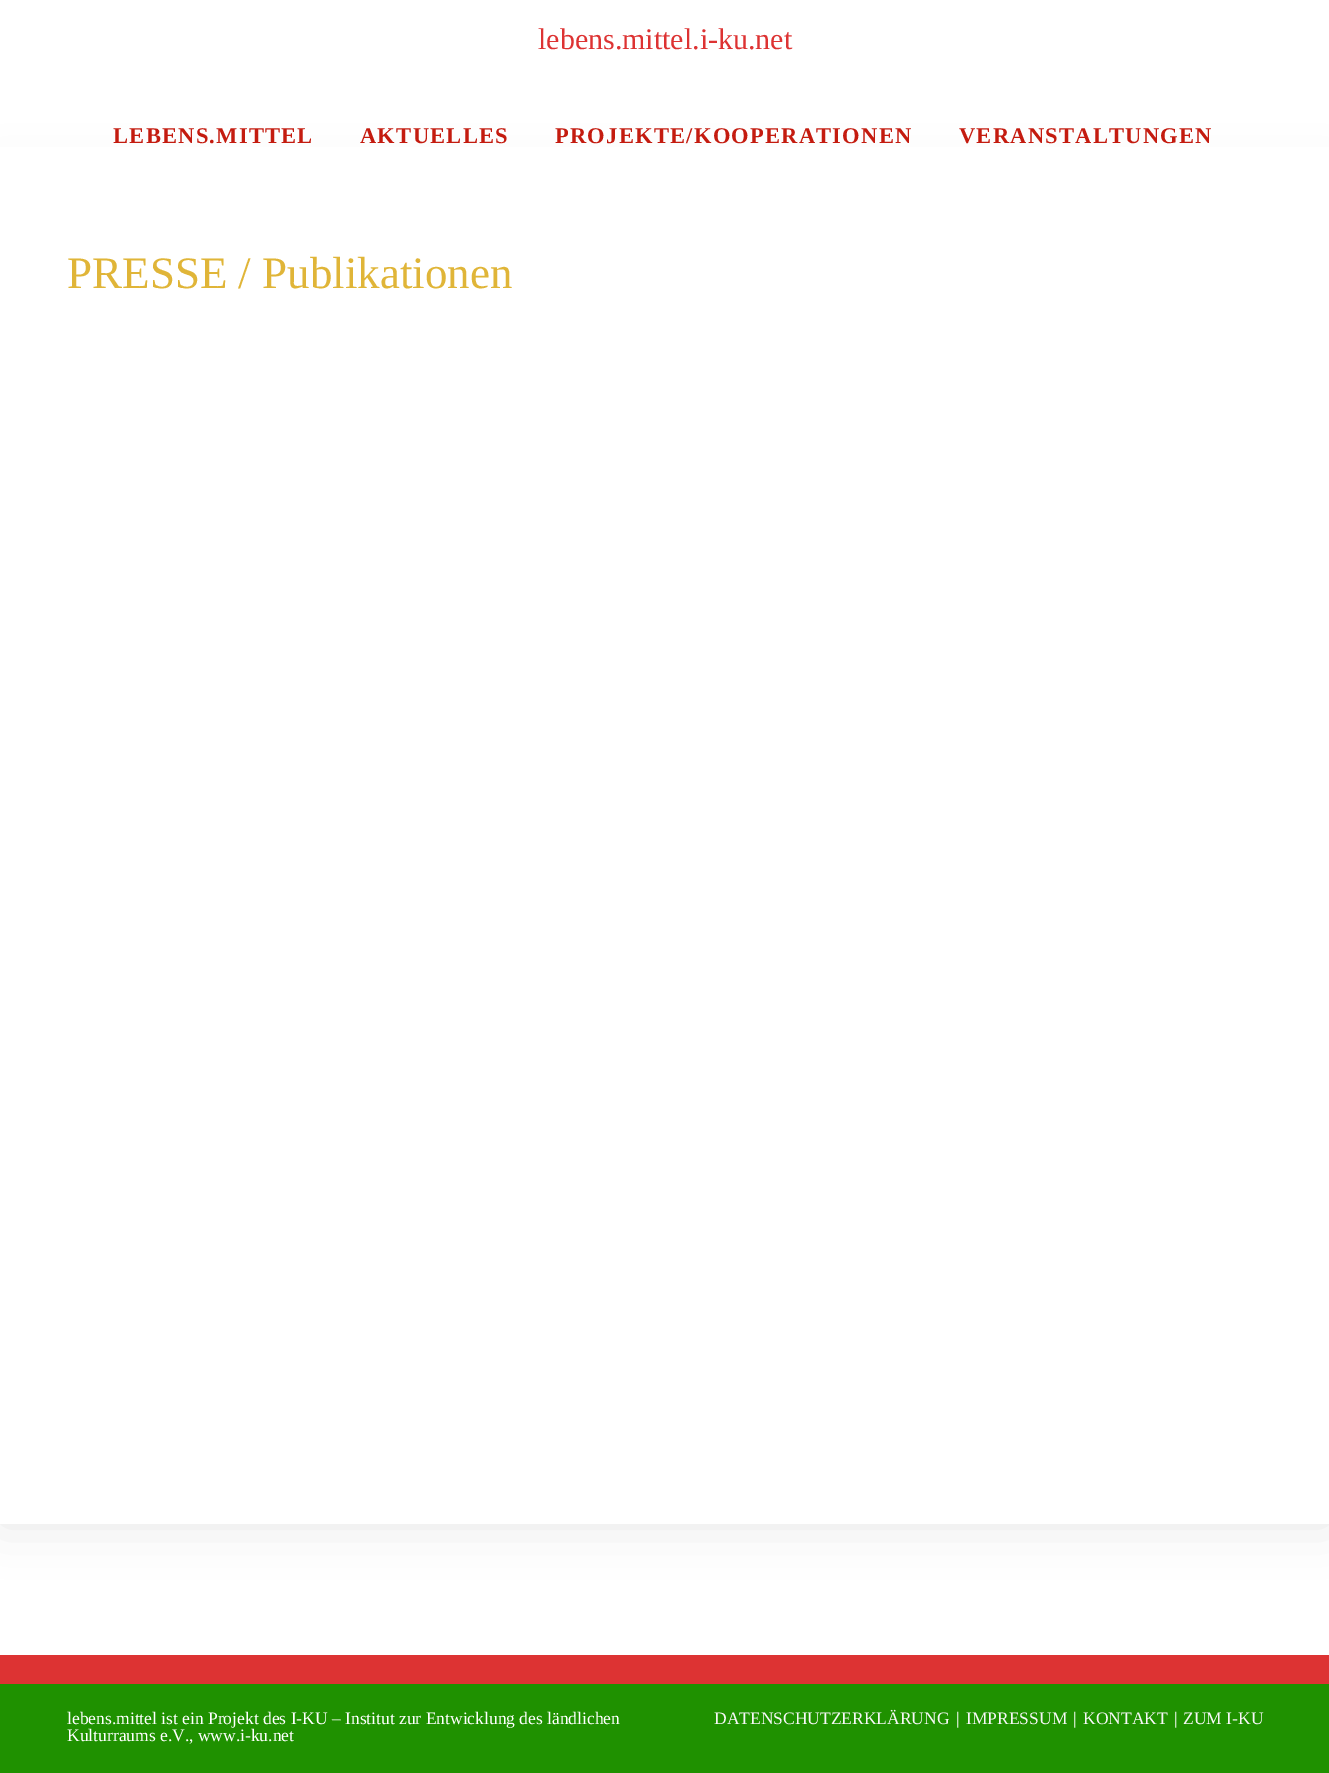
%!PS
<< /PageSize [1329 1773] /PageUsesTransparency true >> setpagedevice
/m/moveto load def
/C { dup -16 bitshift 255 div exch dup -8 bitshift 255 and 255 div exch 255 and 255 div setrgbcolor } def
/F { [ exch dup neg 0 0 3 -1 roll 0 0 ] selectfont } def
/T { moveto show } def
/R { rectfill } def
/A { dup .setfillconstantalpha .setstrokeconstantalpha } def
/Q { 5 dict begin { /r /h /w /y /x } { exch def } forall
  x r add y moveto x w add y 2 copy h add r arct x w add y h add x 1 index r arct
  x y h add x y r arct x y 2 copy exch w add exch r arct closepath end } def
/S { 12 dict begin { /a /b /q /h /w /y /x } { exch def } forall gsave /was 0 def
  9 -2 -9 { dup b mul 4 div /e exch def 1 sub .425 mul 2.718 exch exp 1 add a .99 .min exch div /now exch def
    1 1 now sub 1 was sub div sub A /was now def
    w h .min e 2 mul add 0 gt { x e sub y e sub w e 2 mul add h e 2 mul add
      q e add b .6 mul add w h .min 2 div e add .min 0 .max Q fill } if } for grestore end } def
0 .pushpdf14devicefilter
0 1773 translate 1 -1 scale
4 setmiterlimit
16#FFFFFF C
0 0 1329 1773 R
/LiberationSerif-Regular 30 F
16#DD3333 C
(lebens.mittel.i-ku.net) 538 49 T
16#000000 C
0 179 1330 1345 0 25 .1 S
/LiberationSerif-Bold 22.5 F
16#C41B0F C
113 143 m 1.25 0 (LEBENS.MITTEL) ashow
360 143 m 1.25 0 (AKTUELLES) ashow
555 143 m 1.25 0 (PROJEKTE/KOOPERATIONEN) ashow
959 143 m 1.25 0 (VERANSTALTUNGEN) ashow
16#FFFFFF C
0 147 1329 1377 R
/LiberationSerif-Regular 45 F
16#E0B538 C
(PRESSE / Publikationen) 67 288 T
16#DD3333 C
0 1655 1329 29 R
16#1F9100 C
0 1684 1329 89 R
/LiberationSerif-Regular 17.5 F
16#FFFFFF C
(lebens.mittel ist ein Projekt des I-KU – Institut zur Entwicklung des ländlichen) 67 1724 T
(Kulturraums e.V., www.i-ku.net) 67 1741 T
16#F7F7F7 C
(DATENSCHUTZERKLÄRUNG) 714 1724 T
16#FFFFFF C
(|) 956 1724 T
16#F7F7F7 C
(IMPRESSUM) 966 1724 T
16#FFFFFF C
(|) 1073 1724 T
16#F7F7F7 C
(KONTAKT) 1083 1724 T
16#FFFFFF C
(|) 1174 1724 T
16#F7F7F7 C
(ZUM I-KU) 1183 1724 T
.poppdf14devicefilter showpage
